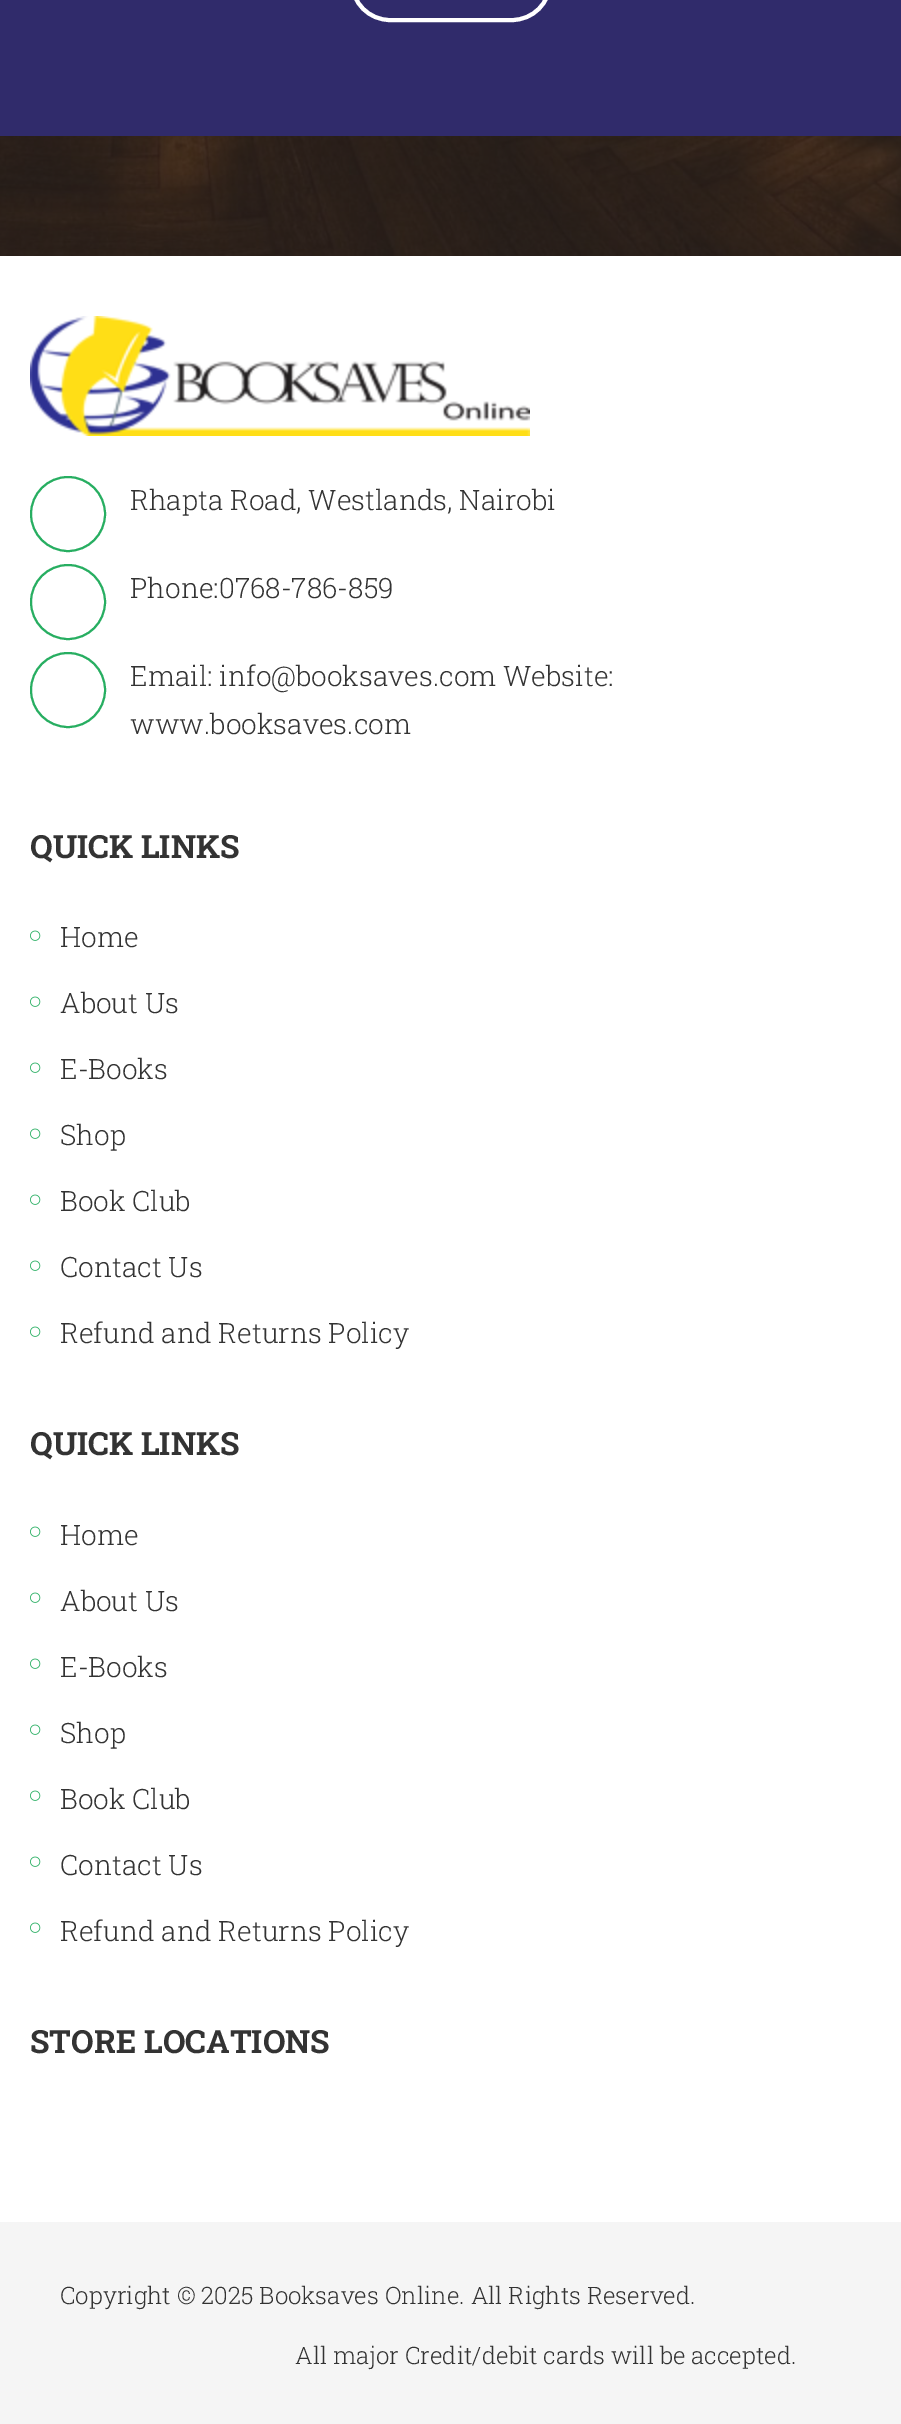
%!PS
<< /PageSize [901 2424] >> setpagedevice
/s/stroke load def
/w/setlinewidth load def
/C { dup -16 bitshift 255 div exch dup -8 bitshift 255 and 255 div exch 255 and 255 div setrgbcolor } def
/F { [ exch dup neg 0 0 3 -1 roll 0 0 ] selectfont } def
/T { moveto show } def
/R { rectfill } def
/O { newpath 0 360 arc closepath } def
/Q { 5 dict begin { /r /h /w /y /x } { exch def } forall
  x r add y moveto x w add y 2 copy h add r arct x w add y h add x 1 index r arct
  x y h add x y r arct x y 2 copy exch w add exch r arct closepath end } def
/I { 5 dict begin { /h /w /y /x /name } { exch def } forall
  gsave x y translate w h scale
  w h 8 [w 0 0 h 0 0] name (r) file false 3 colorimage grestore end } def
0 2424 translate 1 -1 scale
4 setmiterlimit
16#FFFFFF C
0 0 901 2424 R
(1.rgb) 0 136 901 120 I
16#302B6B C
0 0 901 136 R
16#FFFFFF C
4 w
352 -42 198 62 38 Q s
(2.rgb) 30 316 500 120 I
16#27AE61 C
2 w
68 514 37 O s
/RobotoSlab-Light 28 F
16#333333 C
(Rhapta Road, Westlands, Nairobi) 130 510 T
16#27AE61 C
68 602 37 O s
16#333333 C
(Phone:0768-786-859) 130 598 T
16#27AE61 C
68 690 37 O s
16#333333 C
(Email: info@booksaves.com Website:) 130 686 T
(www.booksaves.com) 130 734 T
/RobotoSlab-Bold 32 F
(QUICK LINKS) 30 858 T
(3.rgb) 30 930 11 11 I
/RobotoSlab-Light 28 F
(Home) 60 947 T
(3.rgb) 30 996 11 11 I
(About Us) 60 1013 T
(3.rgb) 30 1062 11 11 I
(E-Books) 60 1079 T
(3.rgb) 30 1128 11 11 I
(Shop) 60 1145 T
(3.rgb) 30 1194 11 11 I
(Book Club) 60 1211 T
(3.rgb) 30 1260 11 11 I
(Contact Us) 60 1277 T
(3.rgb) 30 1326 11 11 I
(Refund and Returns Policy) 60 1343 T
/RobotoSlab-Bold 32 F
(QUICK LINKS) 30 1455 T
(3.rgb) 30 1526 11 11 I
/RobotoSlab-Light 28 F
(Home) 60 1545 T
(3.rgb) 30 1592 11 11 I
(About Us) 60 1611 T
(3.rgb) 30 1658 11 11 I
(E-Books) 60 1677 T
(3.rgb) 30 1724 11 11 I
(Shop) 60 1743 T
(3.rgb) 30 1790 11 11 I
(Book Club) 60 1809 T
(3.rgb) 30 1856 11 11 I
(Contact Us) 60 1875 T
(3.rgb) 30 1922 11 11 I
(Refund and Returns Policy) 60 1941 T
/RobotoSlab-Bold 32 F
(STORE LOCATIONS) 30 2053 T
16#F5F5F5 C
0 2222 901 202 R
/RobotoSlab-Light 24 F
16#333333 C
(Copyright © 2025 Booksaves Online. All Rights Reserved.) 60 2304 T
(All major Credit/debit cards will be accepted.) 295 2364 T
showpage
